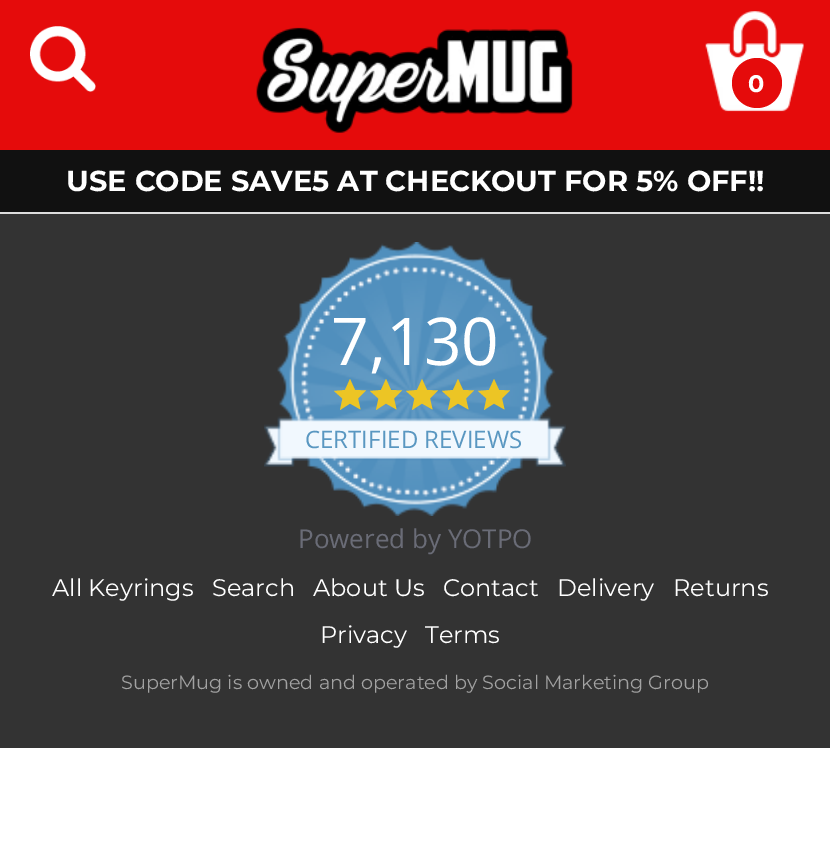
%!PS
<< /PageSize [830 858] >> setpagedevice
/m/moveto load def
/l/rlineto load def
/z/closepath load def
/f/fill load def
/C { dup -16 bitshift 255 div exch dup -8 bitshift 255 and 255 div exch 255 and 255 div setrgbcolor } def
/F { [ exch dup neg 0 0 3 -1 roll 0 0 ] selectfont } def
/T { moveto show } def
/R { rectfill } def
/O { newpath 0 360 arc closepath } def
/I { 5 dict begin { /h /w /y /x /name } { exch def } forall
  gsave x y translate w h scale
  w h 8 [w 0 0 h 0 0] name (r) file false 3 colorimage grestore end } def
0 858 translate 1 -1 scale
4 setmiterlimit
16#FFFFFF C
0 0 830 858 R
16#E50B0B C
0 0 830 150 R
(1.rgb) 30 26 66 66 I
(2.rgb) 256 27 317 106 I
(3.rgb) 705 11 99 101 I
757 83 25 O f
/Montserrat-Bold 24 F
16#FFFFFF C
(0) 748 92 T
16#111111 C
0 150 830 62 R
/Montserrat-Bold 28.8 F
16#FFFFFF C
(USE CODE SAVE5 AT CHECKOUT FOR 5% OFF!!) 66 191 T
16#333333 C
0 214 830 534 R
16#DDDDDD C
0 212 830 2 R
(4.rgb) 264 242 302 274 I
/OpenSans-Regular 66 F
16#FFFFFF C
(7,130) 331 365 T
16#ECC525 C
360.5 409.5 m -10.5 -6 l -10 6.5 l 2.5 -11.5 l -8.5 -7.5 l 11 -1 l 5 -11 l 5 11 l 11 .5 l -8 8 l z f
396.5 409.5 m -10.5 -6 l -10 6.5 l 2.5 -11.5 l -8.5 -7.5 l 11 -1 l 5 -11 l 5 11 l 11 .5 l -8 8 l z f
432.5 409.5 m -10.5 -6 l -10 6.5 l 2.5 -11.5 l -8.5 -7.5 l 11 -1 l 5 -11 l 5 11 l 11 .5 l -8 8 l z f
468.5 409.5 m -10.5 -6 l -10 6.5 l 2.5 -11.5 l -8.5 -7.5 l 11 -1 l 5 -11 l 5 11 l 11 .5 l -8 8 l z f
504.5 409.5 m -10.5 -6 l -10 6.5 l 2.5 -11.5 l -8.5 -7.5 l 11 -1 l 5 -11 l 5 11 l 11 .5 l -8 8 l z f
/OpenSans-Regular 24 F
16#5997C1 C
(CERTIFIED REVIEWS) 305 448 T
/OpenSans-Regular 26 F
16#6A6C77 C
(Powered by YOTPO) 298 548 T
/Montserrat-Regular 24 F
16#FFFFFF C
(All Keyrings) 52 596 T
(Search) 212 596 T
(About Us) 313 596 T
(Contact) 443 596 T
(Delivery) 557 596 T
(Returns) 673 596 T
(Privacy) 320 643 T
(Terms) 425 643 T
/Montserrat-Regular 19.2 F
16#A2A2A2 C
(SuperMug is owned and operated by Social Marketing Group) 121 689 T
showpage
